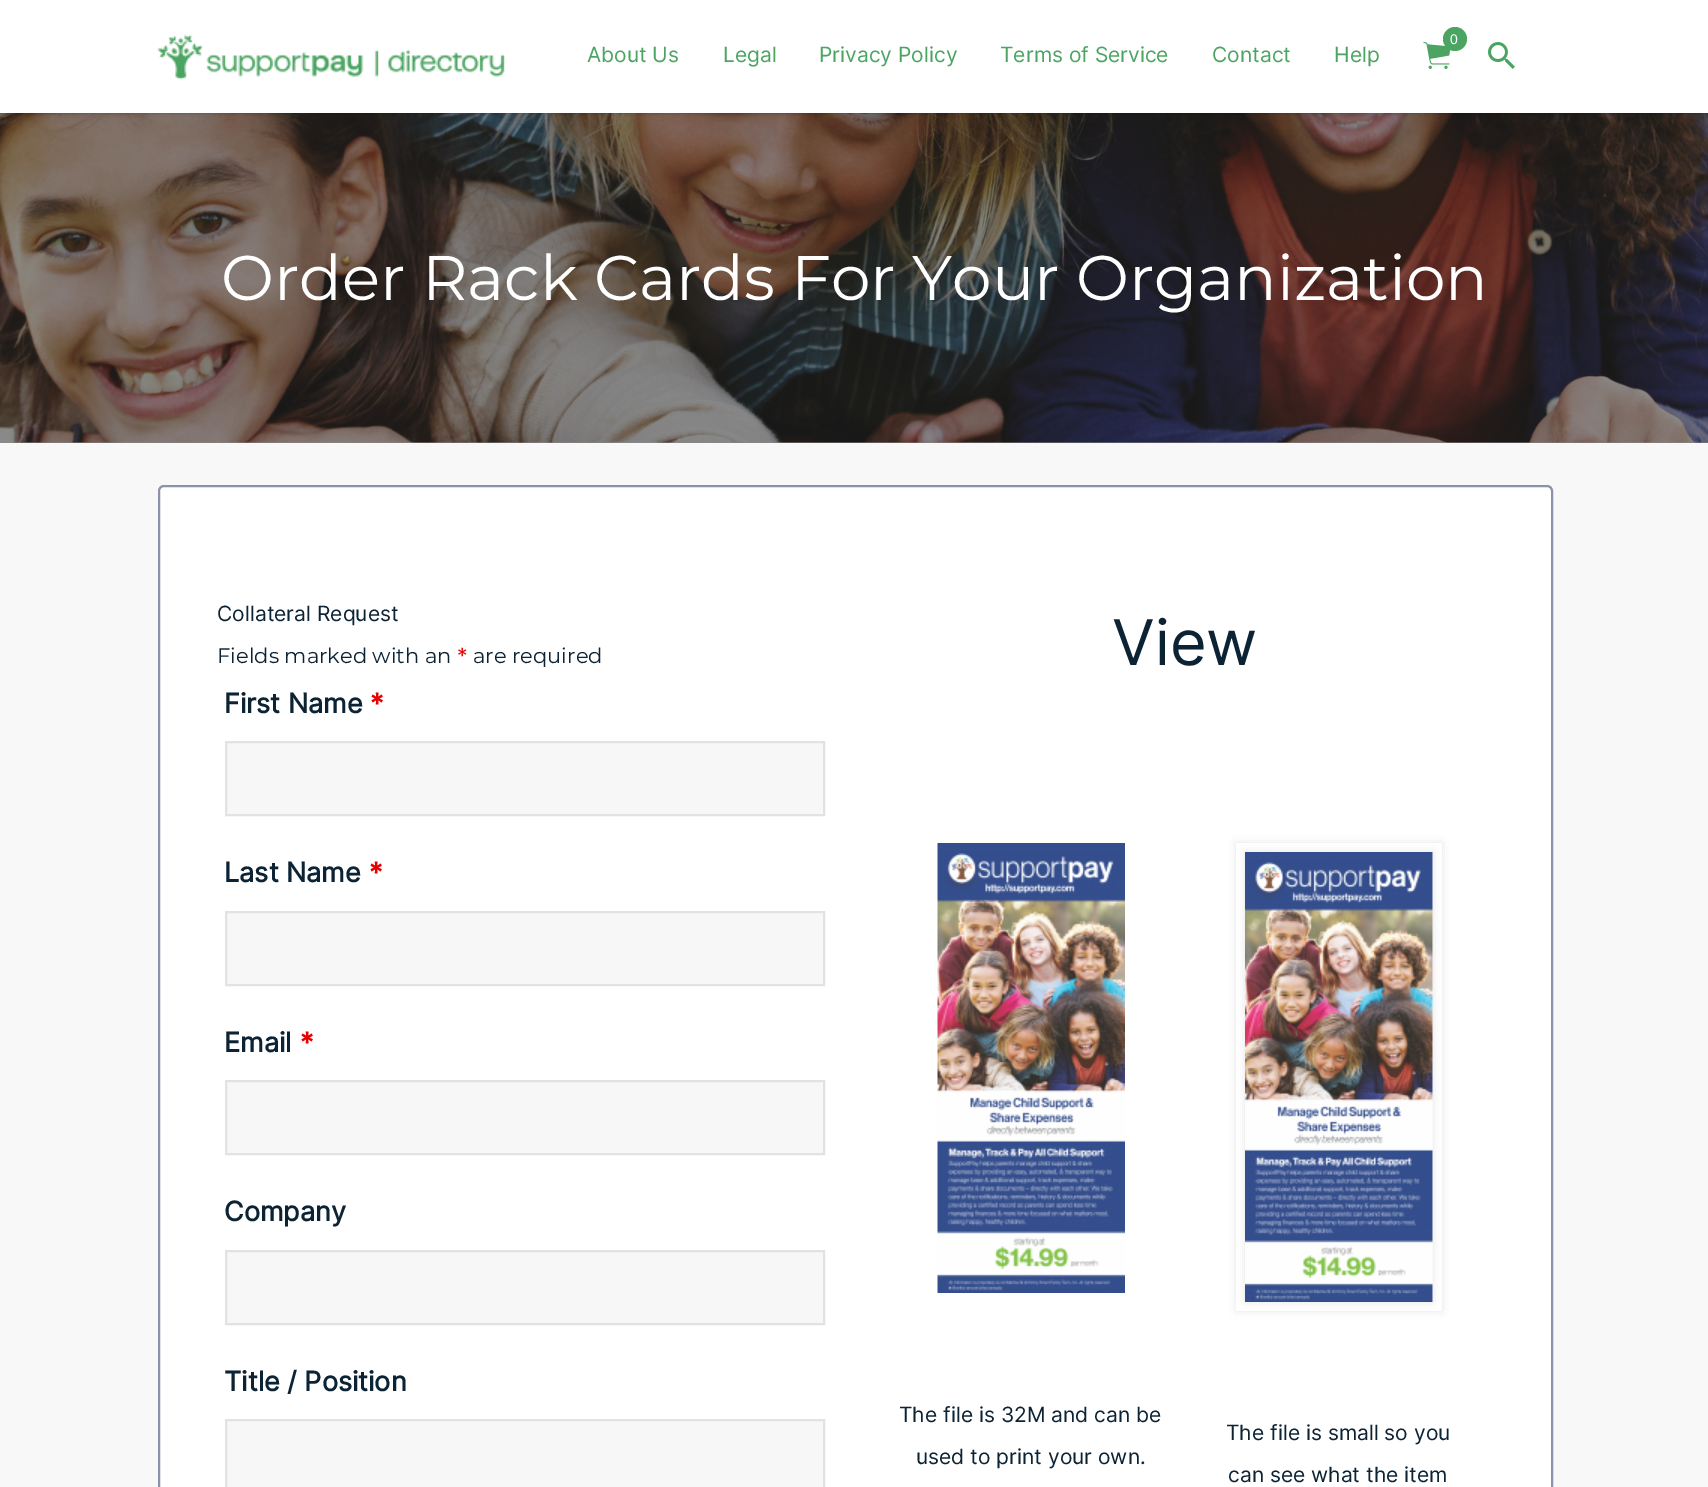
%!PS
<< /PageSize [1708 1487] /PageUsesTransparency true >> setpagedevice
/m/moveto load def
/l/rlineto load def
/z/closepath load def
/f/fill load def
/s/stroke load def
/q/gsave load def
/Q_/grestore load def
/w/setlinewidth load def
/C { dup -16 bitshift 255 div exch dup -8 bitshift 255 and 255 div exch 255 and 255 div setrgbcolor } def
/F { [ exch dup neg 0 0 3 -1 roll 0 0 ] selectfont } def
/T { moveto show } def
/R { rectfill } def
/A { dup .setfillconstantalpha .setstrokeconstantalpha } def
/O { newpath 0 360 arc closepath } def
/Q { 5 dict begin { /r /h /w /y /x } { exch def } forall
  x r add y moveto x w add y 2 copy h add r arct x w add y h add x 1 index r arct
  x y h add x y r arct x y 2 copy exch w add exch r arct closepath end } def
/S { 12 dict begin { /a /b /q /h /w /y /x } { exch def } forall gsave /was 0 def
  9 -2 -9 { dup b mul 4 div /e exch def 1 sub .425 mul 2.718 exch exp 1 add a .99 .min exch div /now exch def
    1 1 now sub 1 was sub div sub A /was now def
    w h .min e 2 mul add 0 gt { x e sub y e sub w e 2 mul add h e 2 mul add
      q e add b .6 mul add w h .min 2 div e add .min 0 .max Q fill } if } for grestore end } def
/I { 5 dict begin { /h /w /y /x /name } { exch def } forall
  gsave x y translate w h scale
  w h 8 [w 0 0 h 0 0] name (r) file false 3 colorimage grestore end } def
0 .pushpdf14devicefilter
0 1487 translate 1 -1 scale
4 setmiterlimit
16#F8F8F8 C
0 0 1708 1487 R
16#888888 C
0 442 1708 1 R
(4.rgb) 0 113 1708 330 I
16#000000 C
3 0 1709 113 0 2 .3 S
16#FFFFFF C
0 0 1708 113 R
(1.rgb) 157 34 348 46 I
(2.rgb) 1423 42 28 27 I
16#4BA461 C
1455 39 12 O f
/LiberationSans-Regular 14 F
16#FFFFFF C
(0) 1450 44 T
/Inter-Regular 21 F
16#4BA461 C
(About Us) 587 62 T
(Legal) 723 62 T
(Privacy Policy) 819 62 T
(Terms of Service) 1000 62 T
(Contact) 1212 62 T
(Help) 1334 62 T
(3.rgb) 1488 42 27 27 I
/Montserrat-Regular 63 F
16#FFFFFF C
(Order Rack Cards For Your Organization) 221 300 T
159 486 1393 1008 5 Q q f Q_
16#8A93AA C
2 w
s
/Inter-Regular 21 F
16#0C2334 C
(Collateral Request) 217 621 T
/Montserrat-Regular 21 F
(Fields marked with an) 217 663 T
/Inter-Regular 21 F
16#E80000 C
(*) 457 663 T
/Montserrat-Regular 21 F
16#0C2334 C
(are required) 473 663 T
/Inter-Bold 27 F
(First Name) 224 713 T
16#E80000 C
(*) 370 713 T
16#F7F7F7 C
226 742 m 598 0 l 0 73 l -598 0 l z q f Q_
16#E2E2E2 C
s
16#0C2334 C
(Last Name) 224 882 T
16#E80000 C
(*) 369 882 T
16#F7F7F7 C
226 912 m 598 0 l 0 73 l -598 0 l z q f Q_
16#E2E2E2 C
s
16#0C2334 C
(Email) 224 1052 T
16#E80000 C
(*) 300 1052 T
16#F7F7F7 C
226 1081 m 598 0 l 0 73 l -598 0 l z q f Q_
16#E2E2E2 C
s
16#0C2334 C
(Company) 224 1221 T
16#F7F7F7 C
226 1251 m 598 0 l 0 73 l -598 0 l z q f Q_
16#E2E2E2 C
s
16#0C2334 C
(Title / Position) 224 1391 T
16#F7F7F7 C
226 1420 m 598 0 l 0 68 l -598 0 l z q f Q_
16#E2E2E2 C
s
/Inter-Regular 63 F
16#0C2334 C
(View) 1112 665 T
(5.rgb) 937 843 188 450 I
/Inter-Regular 21 F
(The file is 32M and can be) 899 1422 T
(used to print your own.) 916 1464 T
q
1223 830 m 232 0 l 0 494 l -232 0 l z 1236 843 m 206 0 l 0 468 l -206 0 l z eoclip newpath
16#000000 C
1236 843 206 468 0 4 .1 S
Q_
16#000000 C
1245 852 188 450 0 4 .1 S
(6.rgb) 1245 852 188 450 I
16#0C2334 C
(The file is small so you) 1226 1440 T
(can see what the item) 1228 1482 T
.poppdf14devicefilter showpage
